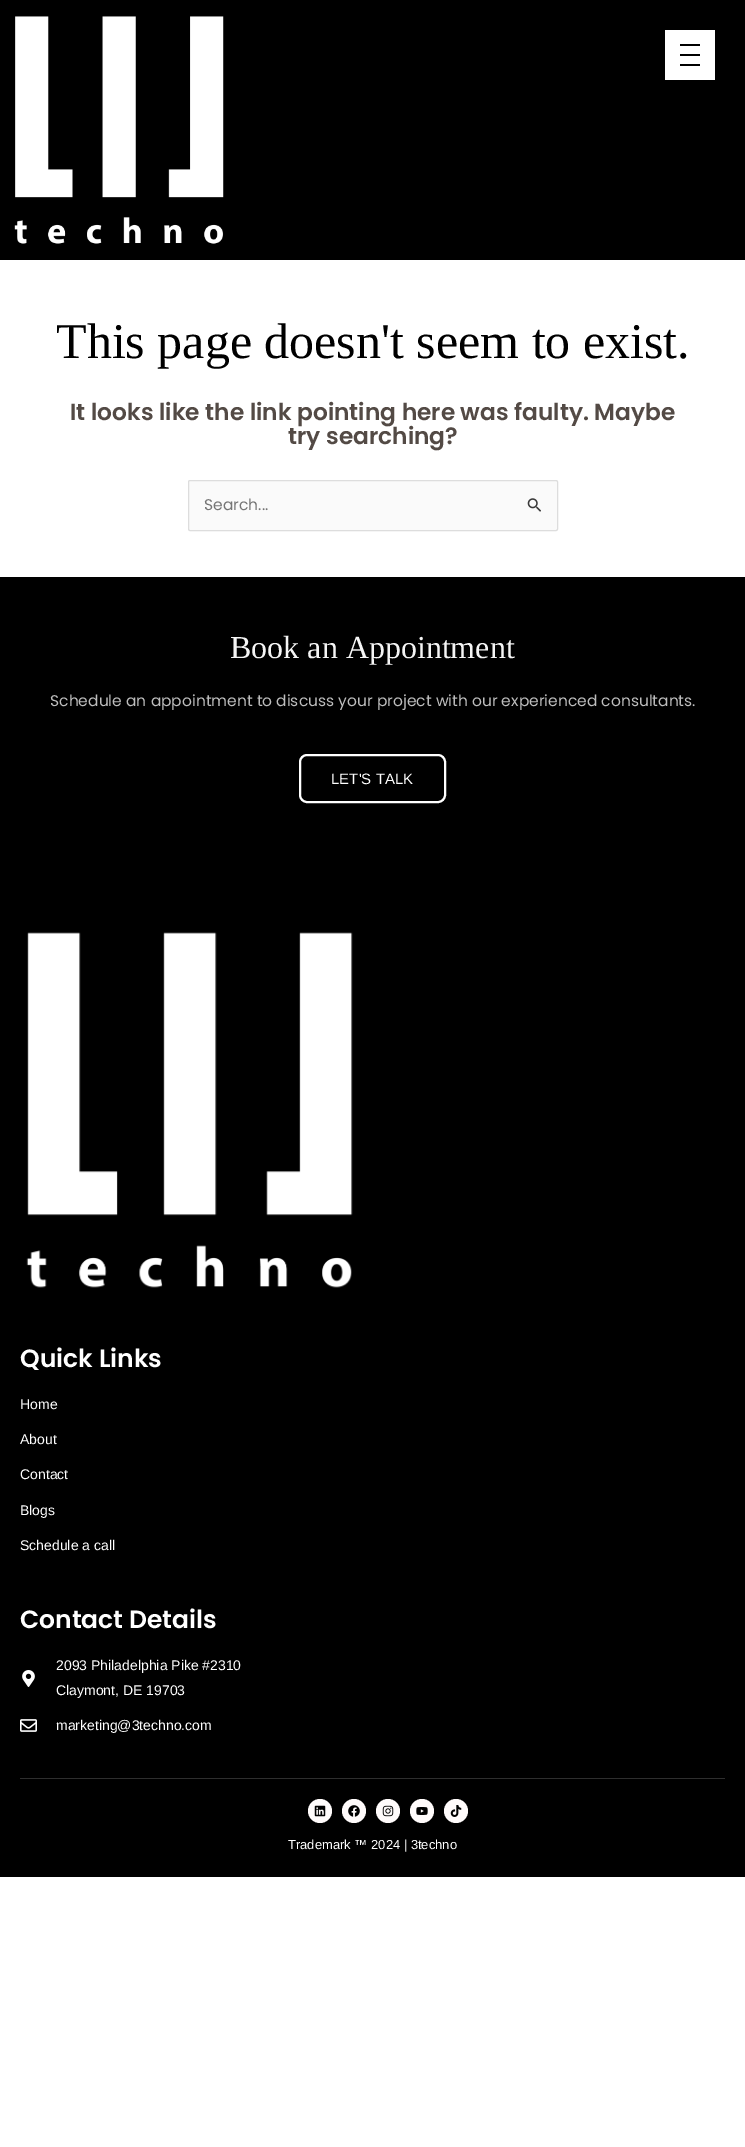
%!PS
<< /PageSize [745 2147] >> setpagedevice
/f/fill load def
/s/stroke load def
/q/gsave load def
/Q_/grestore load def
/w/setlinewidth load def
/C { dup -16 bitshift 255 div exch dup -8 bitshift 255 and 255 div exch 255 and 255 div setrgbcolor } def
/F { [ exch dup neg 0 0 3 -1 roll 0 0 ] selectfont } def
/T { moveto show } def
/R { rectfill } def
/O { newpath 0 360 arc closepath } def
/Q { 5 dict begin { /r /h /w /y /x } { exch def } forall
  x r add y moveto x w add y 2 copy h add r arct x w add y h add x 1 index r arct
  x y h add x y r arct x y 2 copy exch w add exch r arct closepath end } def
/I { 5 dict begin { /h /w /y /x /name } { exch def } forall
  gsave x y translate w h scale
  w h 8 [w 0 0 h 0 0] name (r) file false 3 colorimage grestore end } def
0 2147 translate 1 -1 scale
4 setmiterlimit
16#FFFFFF C
0 0 745 2147 R
16#000000 C
0 0 745 260 R
(1.rgb) 14 16 210 228 I
16#FFFFFF C
665 30 50 50 R
16#000000 C
680 54 20 2 R
680 44 20 2 R
680 64 20 2 R
/LiberationSerif-Regular 50 F
(This page doesn't seem to exist.) 56 358 T
/Poppins-SemiBold 23.25 F
16#534A45 C
(It looks like the link pointing here was faulty. Maybe) 70 420 T
(try searching?) 288 444 T
16#FAFAFA C
188.5 480.5 369 50 1.5 Q q f Q_
16#DDDDDD C
s
/Poppins-Regular 15.5 F
16#757575 C
(Search...) 204 510 T
(2.rgb) 527 498 14 14 I
16#000000 C
0 577 745 1300 R
/LiberationSerif-Regular 32 F
16#F5F5F5 C
(Book an Appointment) 230 658 T
/Poppins-Regular 15.5 F
16#BDBDBD C
(Schedule an appointment to discuss your project with our experienced consultants.) 50 706 T
16#FFFFFF C
2 w
300 755 145 47 7 Q s
/LiberationSans-Regular 15 F
(LET'S TALK) 331 784 T
(3.rgb) 26 932 327 356 I
/Poppins-SemiBold 25 F
(Quick Links) 20 1367 T
/LiberationSans-Regular 14 F
(Home) 20 1409 T
(About) 20 1444 T
(Contact) 20 1479 T
(Blogs) 20 1515 T
(Schedule a call) 20 1550 T
/Poppins-SemiBold 25 F
(Contact Details) 20 1628 T
(4.rgb) 22 1670 13 17 I
/LiberationSans-Regular 14 F
(2093 Philadelphia Pike #2310) 56 1670 T
(Claymont, DE 19703) 56 1695 T
(5.rgb) 20 1719 17 13 I
(marketing@3techno.com) 56 1730 T
16#2E2E2E C
20 1778 705 1 R
16#FFFBFB C
320 1811 12 O f
(6.rgb) 314 1805 12 12 I
354 1811 12 O f
(7.rgb) 348 1805 12 12 I
388 1811 12 O f
(8.rgb) 382 1805 12 12 I
422 1811 12 O f
(9.rgb) 416 1807 12 8 I
456 1811 12 O f
(10.rgb) 450 1805 12 12 I
/LiberationSans-Regular 13 F
16#FFFFFF C
(Trademark ™ 2024 | 3techno) 288 1849 T
showpage
